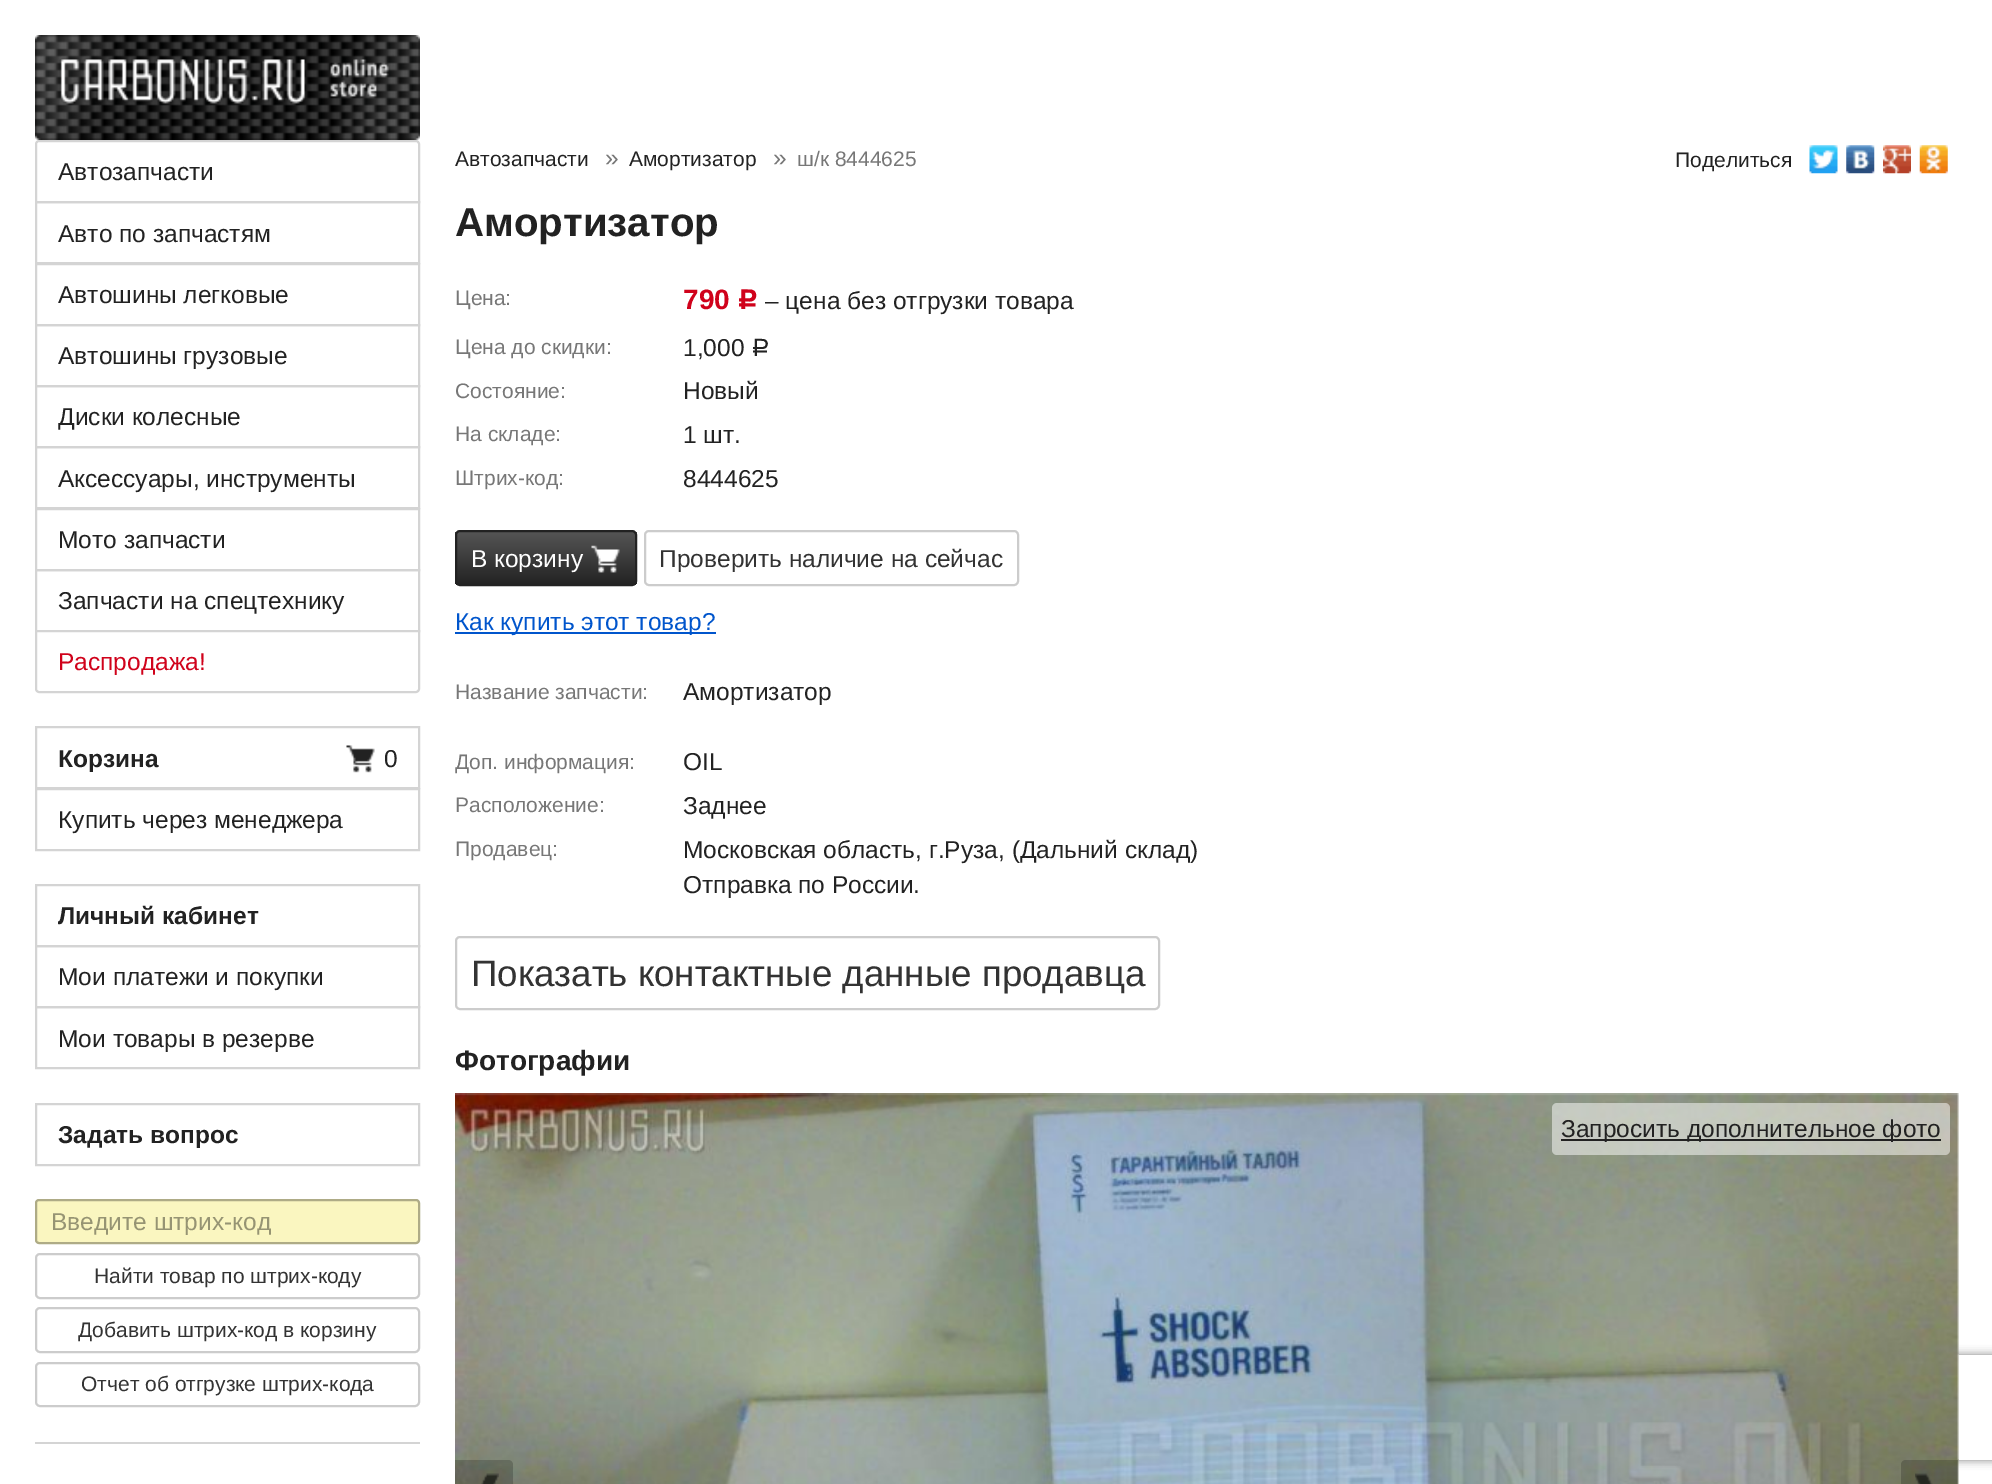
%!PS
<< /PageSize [1992 1484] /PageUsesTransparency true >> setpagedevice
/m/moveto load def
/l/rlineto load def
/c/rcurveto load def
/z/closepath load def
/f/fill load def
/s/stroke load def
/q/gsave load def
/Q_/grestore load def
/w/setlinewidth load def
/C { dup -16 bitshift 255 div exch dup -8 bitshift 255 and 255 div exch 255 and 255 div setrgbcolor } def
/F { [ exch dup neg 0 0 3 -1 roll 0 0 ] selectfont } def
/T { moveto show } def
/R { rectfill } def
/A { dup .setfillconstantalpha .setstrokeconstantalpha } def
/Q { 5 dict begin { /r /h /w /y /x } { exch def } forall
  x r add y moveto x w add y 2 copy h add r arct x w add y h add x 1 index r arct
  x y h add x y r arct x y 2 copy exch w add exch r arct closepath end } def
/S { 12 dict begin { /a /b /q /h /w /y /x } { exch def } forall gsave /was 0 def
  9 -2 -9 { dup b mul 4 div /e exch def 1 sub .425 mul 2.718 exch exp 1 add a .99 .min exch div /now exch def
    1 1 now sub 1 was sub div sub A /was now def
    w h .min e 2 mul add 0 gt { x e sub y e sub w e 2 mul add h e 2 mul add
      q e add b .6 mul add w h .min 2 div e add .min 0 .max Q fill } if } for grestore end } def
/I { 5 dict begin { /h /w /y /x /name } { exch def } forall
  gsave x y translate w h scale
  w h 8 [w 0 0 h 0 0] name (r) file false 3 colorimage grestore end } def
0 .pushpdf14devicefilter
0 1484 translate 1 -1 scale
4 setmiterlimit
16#FFFFFF C
0 0 1992 1484 R
(1.rgb) 35 35 385 105 I
16#D4D4D4 C
2 w
39 141 m 377 0 l 1.5 0 3 1.5 3 3 c 0 58 l -383 0 l 0 -58 l 0 -1.5 1.5 -3 3 -3 c z s
/LiberationSans-Regular 24.5 F
16#222222 C
(Автозапчасти) 58 180 T
16#D4D4D4 C
36 202 383 61 rectstroke
16#222222 C
(Авто по запчастям) 58 242 T
16#D4D4D4 C
36 264 383 61 rectstroke
16#222222 C
(Автошины легковые) 58 303 T
16#D4D4D4 C
36 325 383 61 rectstroke
16#222222 C
(Автошины грузовые) 58 364 T
16#D4D4D4 C
36 386 383 61 rectstroke
16#222222 C
(Диски колесные) 58 425 T
16#D4D4D4 C
36 447 383 61 rectstroke
16#222222 C
(Аксессуары, инструменты) 58 487 T
16#D4D4D4 C
36 509 383 61 rectstroke
16#222222 C
(Мото запчасти) 58 548 T
16#D4D4D4 C
36 570 383 61 rectstroke
16#222222 C
(Запчасти на спецтехнику) 58 609 T
16#FFFFFF C
36 631 m 383 0 l 0 58 l 0 1.5 -1.5 3 -3 3 c -377 0 l -1.5 0 -3 -1.5 -3 -3 c z q f Q_
16#D4D4D4 C
s
16#D0021B C
(Распродажа!) 58 670 T
16#D4D4D4 C
36 727 383 61 rectstroke
/LiberationSans-Bold 24.5 F
16#222222 C
(Корзина) 58 767 T
(2.rgb) 346 745 29 28 I
/LiberationSans-Regular 24.5 F
(0) 384 767 T
16#D4D4D4 C
36 789 383 61 rectstroke
16#222222 C
(Купить через менеджера) 58 828 T
16#D4D4D4 C
36 885 383 61 rectstroke
/LiberationSans-Bold 24.5 F
16#222222 C
(Личный кабинет) 58 924 T
16#D4D4D4 C
36 946 383 61 rectstroke
/LiberationSans-Regular 24.5 F
16#222222 C
(Мои платежи и покупки) 58 985 T
16#D4D4D4 C
36 1007 383 61 rectstroke
16#222222 C
(Мои товары в резерве) 58 1047 T
16#D4D4D4 C
36 1104 383 61 rectstroke
/LiberationSans-Bold 24.5 F
16#222222 C
(Задать вопрос) 58 1143 T
16#FAF6C0 C
36 1200 383 43 3 Q q f Q_
16#AEAB86 C
s
/LiberationSans-Regular 24.5 F
16#969473 C
(Введите штрих-код) 51 1230 T
16#CCCCCC C
36 1254 383 44 4 Q s
/LiberationSans-Regular 21 F
16#333333 C
(Найти товар по штрих-коду) 94 1283 T
16#CCCCCC C
36 1308 383 44 4 Q s
16#333333 C
(Добавить штрих-код в корзину) 78 1337 T
16#CCCCCC C
36 1363 383 43 4 Q s
16#333333 C
(Отчет об отгрузке штрих-кода) 81 1391 T
16#D4D4D4 C
35 1442 385 2 R
16#222222 C
(Автозапчасти) 455 166 T
/LiberationSans-Regular 24.5 F
16#777777 C
(») 605 166 T
/LiberationSans-Regular 21 F
16#222222 C
(Амортизатор) 629 166 T
/LiberationSans-Regular 24.5 F
16#777777 C
(») 773 166 T
/LiberationSans-Regular 21 F
(ш/к 8444625) 797 166 T
16#222222 C
(Поделиться) 1675 167 T
(3.rgb) 1809 145 29 29 I
(4.rgb) 1846 145 29 29 I
(5.rgb) 1883 145 28 29 I
(6.rgb) 1919 145 29 29 I
/LiberationSans-Bold 40.25 F
(Амортизатор) 455 236 T
/LiberationSans-Regular 21 F
16#777777 C
(Цена:) 455 305 T
/LiberationSans-Bold 28 F
16#D0021B C
(790) 683 309 T
/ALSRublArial-Bold 28 F
(Р) 737 309 T
/LiberationSans-Regular 24.5 F
16#222222 C
(– цена без отгрузки товара) 765 309 T
/LiberationSans-Regular 21 F
16#777777 C
(Цена до скидки:) 455 354 T
/LiberationSans-Regular 24.5 F
16#222222 C
(1,000) 683 356 T
/ALSRublArial-Regular 24.5 F
(Р) 751 356 T
/LiberationSans-Regular 21 F
16#777777 C
(Состояние:) 455 398 T
/LiberationSans-Regular 24.5 F
16#222222 C
(Новый) 683 399 T
/LiberationSans-Regular 21 F
16#777777 C
(На складе:) 455 441 T
/LiberationSans-Regular 24.5 F
16#222222 C
(1 шт.) 683 443 T
/LiberationSans-Regular 21 F
16#777777 C
(Штрих-код:) 455 485 T
/LiberationSans-Regular 24.5 F
16#222222 C
(8444625) 683 487 T
q
455 530 182 56 5 Q clip newpath
q 455 532 m 182 0 l 0 53 l -182 0 l z clip newpath
<< /ShadingType 2 /ColorSpace /DeviceRGB /Coords [546 532 546 585] /Extend [true true] /Function << /FunctionType 2 /Domain [0 1] /C0 [.333 .333 .333] /C1 [.133 .133 .133] /N 1 >> >> shfill Q_
Q_
456 531 180 54 4 Q s
16#FFFFFF C
(В корзину) 471 567 T
(7.rgb) 591 545 29 28 I
16#CCCCCC C
645 531 373 54 4 Q s
16#333333 C
(Проверить наличие на сейчас) 659 567 T
16#0055CC C
455 632 261 2 R
(Как купить этот товар?) 455 630 T
/LiberationSans-Regular 21 F
16#777777 C
(Название запчасти:) 455 699 T
/LiberationSans-Regular 24.5 F
16#222222 C
(Амортизатор) 683 700 T
/LiberationSans-Regular 21 F
16#777777 C
(Доп. информация:) 455 769 T
/LiberationSans-Regular 24.5 F
16#222222 C
(OIL) 683 770 T
/LiberationSans-Regular 21 F
16#777777 C
(Расположение:) 455 812 T
/LiberationSans-Regular 24.5 F
16#222222 C
(Заднее) 683 814 T
/LiberationSans-Regular 21 F
16#777777 C
(Продавец:) 455 856 T
/LiberationSans-Regular 24.5 F
16#222222 C
(Московская область, г.Руза, \(Дальний склад\)) 683 858 T
(Отправка по России.) 683 893 T
16#CCCCCC C
456 937 703 72 4 Q s
/LiberationSans-Regular 36.75 F
16#333333 C
(Показать контактные данные продавцa) 471 986 T
/LiberationSans-Bold 28 F
16#222222 C
(Фотографии) 455 1070 T
q
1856 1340 m 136 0 l 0 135 l -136 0 l z 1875 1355 m 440 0 l 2 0 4 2 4 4 c 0 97 l 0 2 -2 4 -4 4 c -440 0 l -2 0 -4 -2 -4 -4 c 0 -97 l 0 -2 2 -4 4 -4 c z eoclip newpath
16#808080 C
1871 1355 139 105 4 4.5 1 S
Q_
(8.rgb) 455 1093 1504 391 I
0.5 A
16#FFFFFF C
1552 1103 398 52 5 Q f
1 A
16#222222 C
1561 1139 380 2 R
/LiberationSans-Regular 24.5 F
(Запросить дополнительное фото) 1561 1137 T
0.2 A
16#000000 C
455 1460 m 53 0 l 3 0 5 2 5 5 c 0 19 l 0 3 -2 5 -5 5 c -53 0 l z f
1 A
(9.rgb) 481 1473 18 11 I
0.2 A
1906 1460 m 52 0 l 0 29 l -52 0 l -3 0 -5 -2 -5 -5 c 0 -19 l 0 -3 2 -5 5 -5 c z f
1 A
(10.rgb) 1915 1473 18 11 I
.poppdf14devicefilter showpage
